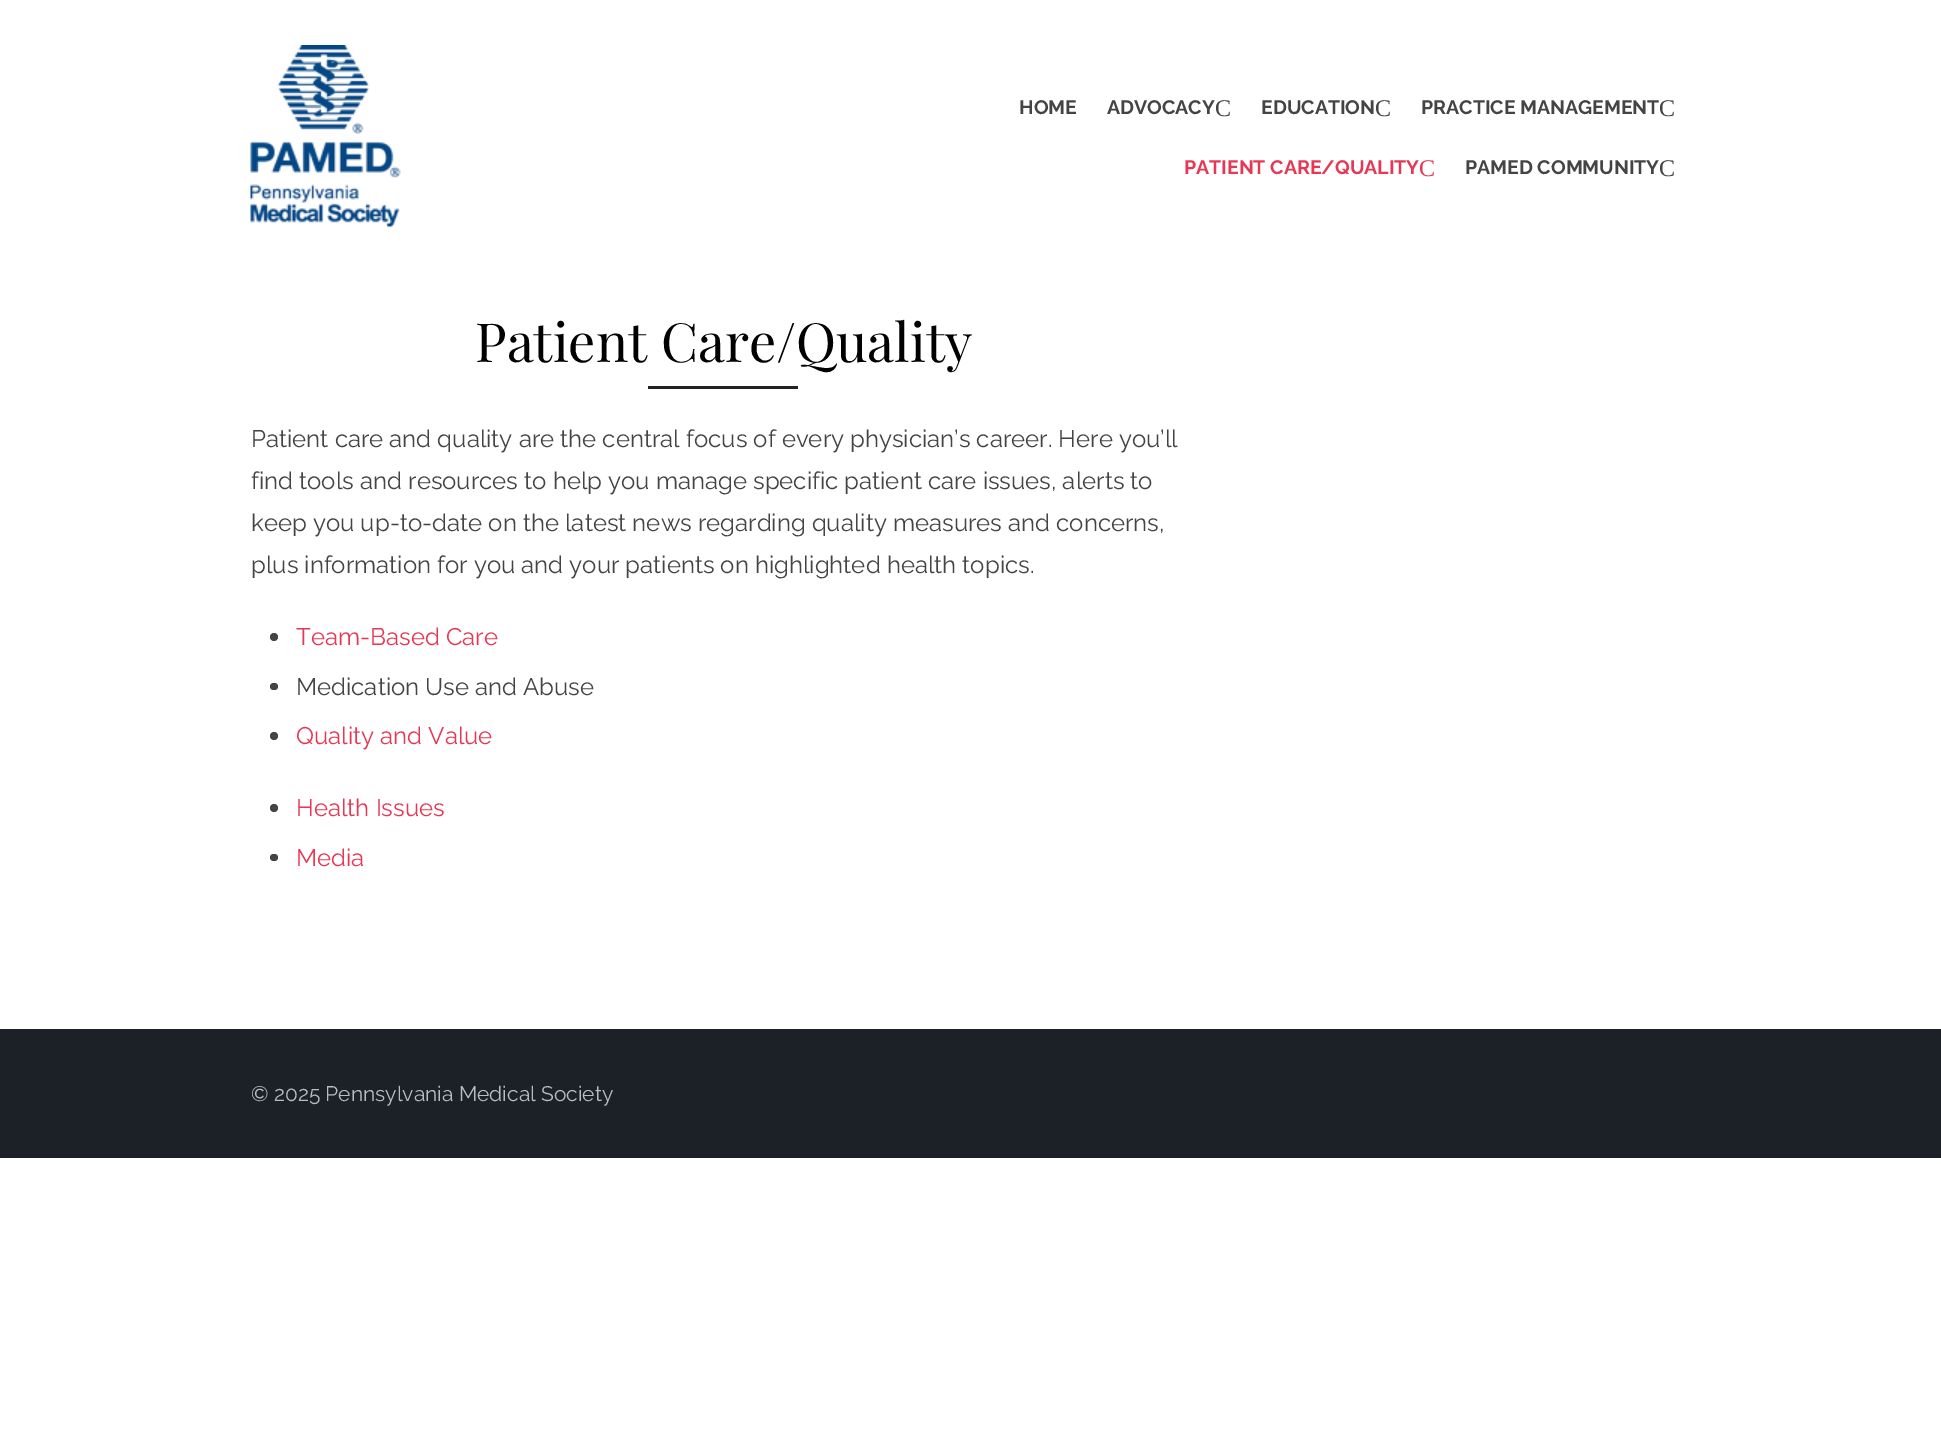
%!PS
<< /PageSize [1941 1455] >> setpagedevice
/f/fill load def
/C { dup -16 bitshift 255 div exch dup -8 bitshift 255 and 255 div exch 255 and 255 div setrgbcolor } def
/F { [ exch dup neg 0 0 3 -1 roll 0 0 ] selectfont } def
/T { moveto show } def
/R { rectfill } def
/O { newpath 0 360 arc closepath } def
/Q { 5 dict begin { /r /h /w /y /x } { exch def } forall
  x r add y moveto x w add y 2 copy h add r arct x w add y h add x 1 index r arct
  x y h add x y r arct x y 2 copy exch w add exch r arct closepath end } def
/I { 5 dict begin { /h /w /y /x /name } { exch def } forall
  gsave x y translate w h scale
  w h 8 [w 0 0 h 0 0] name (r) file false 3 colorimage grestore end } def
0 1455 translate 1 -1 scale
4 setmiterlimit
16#FFFFFF C
0 0 1941 1455 R
(1.rgb) 250 45 151 182 I
/Raleway-Bold 19.5 F
16#444444 C
(HOME) 1019 114 T
(ADVOCACY) 1107 114 T
/LiberationSerif-Regular 24 F
(C) 1215 116 T
/Raleway-Bold 19.5 F
(EDUCATION) 1261 114 T
/LiberationSerif-Regular 24 F
(C) 1375 116 T
/Raleway-Bold 19.5 F
(PRACTICE MANAGEMENT) 1421 114 T
/LiberationSerif-Regular 24 F
(C) 1659 116 T
/Raleway-Bold 19.5 F
16#E63855 C
(PATIENT CARE/QUALITY) 1184 174 T
/LiberationSerif-Regular 24 F
(C) 1419 176 T
/Raleway-Bold 19.5 F
16#444444 C
(PAMED COMMUNITY) 1465 174 T
/LiberationSerif-Regular 24 F
(C) 1659 176 T
/PlayfairDisplay-Regular 54 F
16#000000 C
(Patient Care/Quality) 475 362 T
16#222222 C
648 386 150 3 R
/Raleway-Regular 24 F
16#444444 C
(Patient care and quality are the central focus of every physician’s career. Here you’ll) 251 447 T
(find tools and resources to help you manage specific patient care issues, alerts to) 251 489 T
(keep you up-to-date on the latest news regarding quality measures and concerns,) 251 531 T
(plus information for you and your patients on highlighted health topics.) 251 573 T
274 637 4 O f
16#E63855 C
(Team-Based Care) 296 645 T
16#444444 C
270 683 8 7 3.5 Q f
(Medication Use and Abuse) 296 695 T
274 736 4 O f
16#E63855 C
(Quality and Value) 296 744 T
16#444444 C
274 808 4 O f
16#E63855 C
(Health Issues) 296 816 T
16#444444 C
270 854 8 7 3.5 Q f
16#E63855 C
(Media) 296 866 T
16#1B2126 C
0 1029 1941 129 R
/Raleway-Regular 21 F
16#BBBCBE C
(© 2025 Pennsylvania Medical Society) 251 1101 T
showpage
